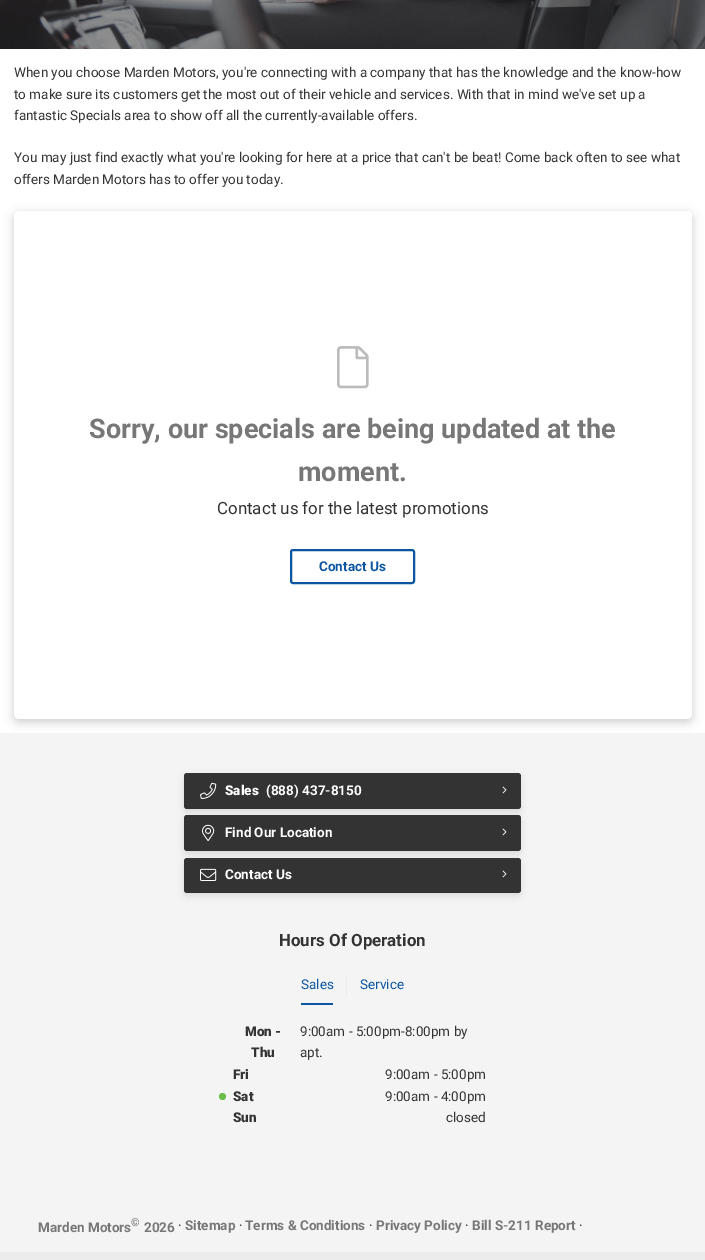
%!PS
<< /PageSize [705 1260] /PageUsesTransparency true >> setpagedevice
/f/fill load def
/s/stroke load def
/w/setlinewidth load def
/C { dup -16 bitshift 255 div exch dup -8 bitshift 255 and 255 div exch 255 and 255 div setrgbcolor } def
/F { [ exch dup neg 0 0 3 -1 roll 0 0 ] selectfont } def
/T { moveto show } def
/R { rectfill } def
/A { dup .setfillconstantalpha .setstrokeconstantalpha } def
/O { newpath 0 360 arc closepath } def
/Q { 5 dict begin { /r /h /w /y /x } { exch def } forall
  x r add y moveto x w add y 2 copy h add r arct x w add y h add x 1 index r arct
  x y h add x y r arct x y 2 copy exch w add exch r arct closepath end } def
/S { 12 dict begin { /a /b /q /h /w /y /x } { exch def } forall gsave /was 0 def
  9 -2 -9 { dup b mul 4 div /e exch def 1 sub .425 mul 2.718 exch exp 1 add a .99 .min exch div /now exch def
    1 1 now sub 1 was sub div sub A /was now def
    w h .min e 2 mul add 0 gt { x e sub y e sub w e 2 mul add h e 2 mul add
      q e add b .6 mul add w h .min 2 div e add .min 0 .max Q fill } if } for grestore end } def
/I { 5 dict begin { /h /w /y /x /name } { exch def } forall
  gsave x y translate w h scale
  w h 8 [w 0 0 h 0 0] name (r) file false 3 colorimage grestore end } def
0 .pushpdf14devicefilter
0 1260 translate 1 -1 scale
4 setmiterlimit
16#FFFFFF C
0 0 705 1260 R
(1.rgb) 0 0 705 49 I
/Roboto-Regular 13.5 F
16#333333 C
(When you choose Marden Motors, you're connecting with a company that has the knowledge and the know-how) 14 77 T
(to make sure its customers get the most out of their vehicle and services. With that in mind we've set up a) 14 99 T
(fantastic Specials area to show off all the currently-available offers.) 14 120 T
(You may just find exactly what you're looking for here at a price that can't be beat! Come back often to see what) 14 162 T
(offers Marden Motors has to offer you today.) 14 184 T
16#000000 C
14 214 678 508 5 5 .2 S
16#FFFFFF C
14 211 678 508 5 Q f
(2.rgb) 337 346 32 43 I
/Roboto-Bold 27 F
16#777777 C
(Sorry, our specials are being updated at the) 89 438 T
(moment.) 298 481 T
/Roboto-Regular 16.9 F
16#333333 C
(Contact us for the latest promotions) 217 514 T
16#0B55A1 C
2 w
291 550 123 33 2 Q s
/Roboto-Bold 13.5 F
(Contact Us) 319 571 T
16#F4F4F4 C
0 733 705 433 R
16#000000 C
184 776 337 36 3 3.5 .1 S
16#333333 C
184 773 337 36 3 Q f
(3.rgb) 200 782 17 17 I
/Roboto-Black 13.5 F
16#FFFFFF C
(Sales) 225 795 T
/Roboto-Bold 13.5 F
(\(888\) 437-8150) 266 795 T
(4.rgb) 502 786 5 8 I
16#000000 C
184 818 337 36 3 3.5 .1 S
16#333333 C
184 815 337 36 3 Q f
(5.rgb) 202 824 13 17 I
16#FFFFFF C
(Find Our Location) 225 837 T
(4.rgb) 502 828 5 8 I
16#000000 C
184 861 337 35 3 3.5 .1 S
16#333333 C
184 858 337 35 3 Q f
(6.rgb) 200 868 17 13 I
16#FFFFFF C
(Contact Us) 225 879 T
(4.rgb) 502 870 5 8 I
/Roboto-Bold 16.9 F
16#333333 C
(Hours Of Operation) 279 946 T
16#0B55A1 C
301 1003 32 2 R
/Roboto-Regular 13.5 F
(Sales) 301 989 T
16#ECECEC C
346 977 1 19 R
16#0B55A1 C
(Service) 360 989 T
/Roboto-Black 13.5 F
16#333333 C
(Mon -) 245 1036 T
(Thu) 251 1057 T
/Roboto-Regular 13.5 F
(9:00am - 5:00pm-8:00pm by) 300 1036 T
(apt.) 300 1057 T
/Roboto-Black 13.5 F
(Fri) 233 1079 T
/Roboto-Regular 13.5 F
(9:00am - 5:00pm) 385 1079 T
16#6BBF49 C
222.5 1096.5 3.5 O f
/Roboto-Black 13.5 F
16#333333 C
(Sat) 233 1101 T
/Roboto-Regular 13.5 F
(9:00am - 4:00pm) 385 1101 T
/Roboto-Black 13.5 F
(Sun) 233 1122 T
/Roboto-Regular 13.5 F
(closed) 446 1122 T
16#F4F4F4 C
0 1166 705 86 R
/Roboto-Bold 13.5 F
16#777777 C
(Marden Motors) 38 1232 T
/Roboto-Bold 11 F
(©) 131 1226 T
/Roboto-Bold 13.5 F
(2026) 144 1232 T
/Roboto-Regular 13.5 F
16#333333 C
(·) 178 1230 T
/Roboto-Bold 13.5 F
16#777777 C
(Sitemap) 185 1230 T
/Roboto-Regular 13.5 F
16#333333 C
(·) 239 1230 T
/Roboto-Bold 13.5 F
16#777777 C
(Terms & Conditions) 245 1230 T
/Roboto-Regular 13.5 F
16#333333 C
(·) 369 1230 T
/Roboto-Bold 13.5 F
16#777777 C
(Privacy Policy) 376 1230 T
/Roboto-Regular 13.5 F
16#333333 C
(·) 465 1230 T
/Roboto-Bold 13.5 F
16#777777 C
(Bill S-211 Report) 472 1230 T
/Roboto-Regular 13.5 F
16#333333 C
(·) 579 1230 T
16#ECECEC C
0 1252 705 8 R
.poppdf14devicefilter showpage
